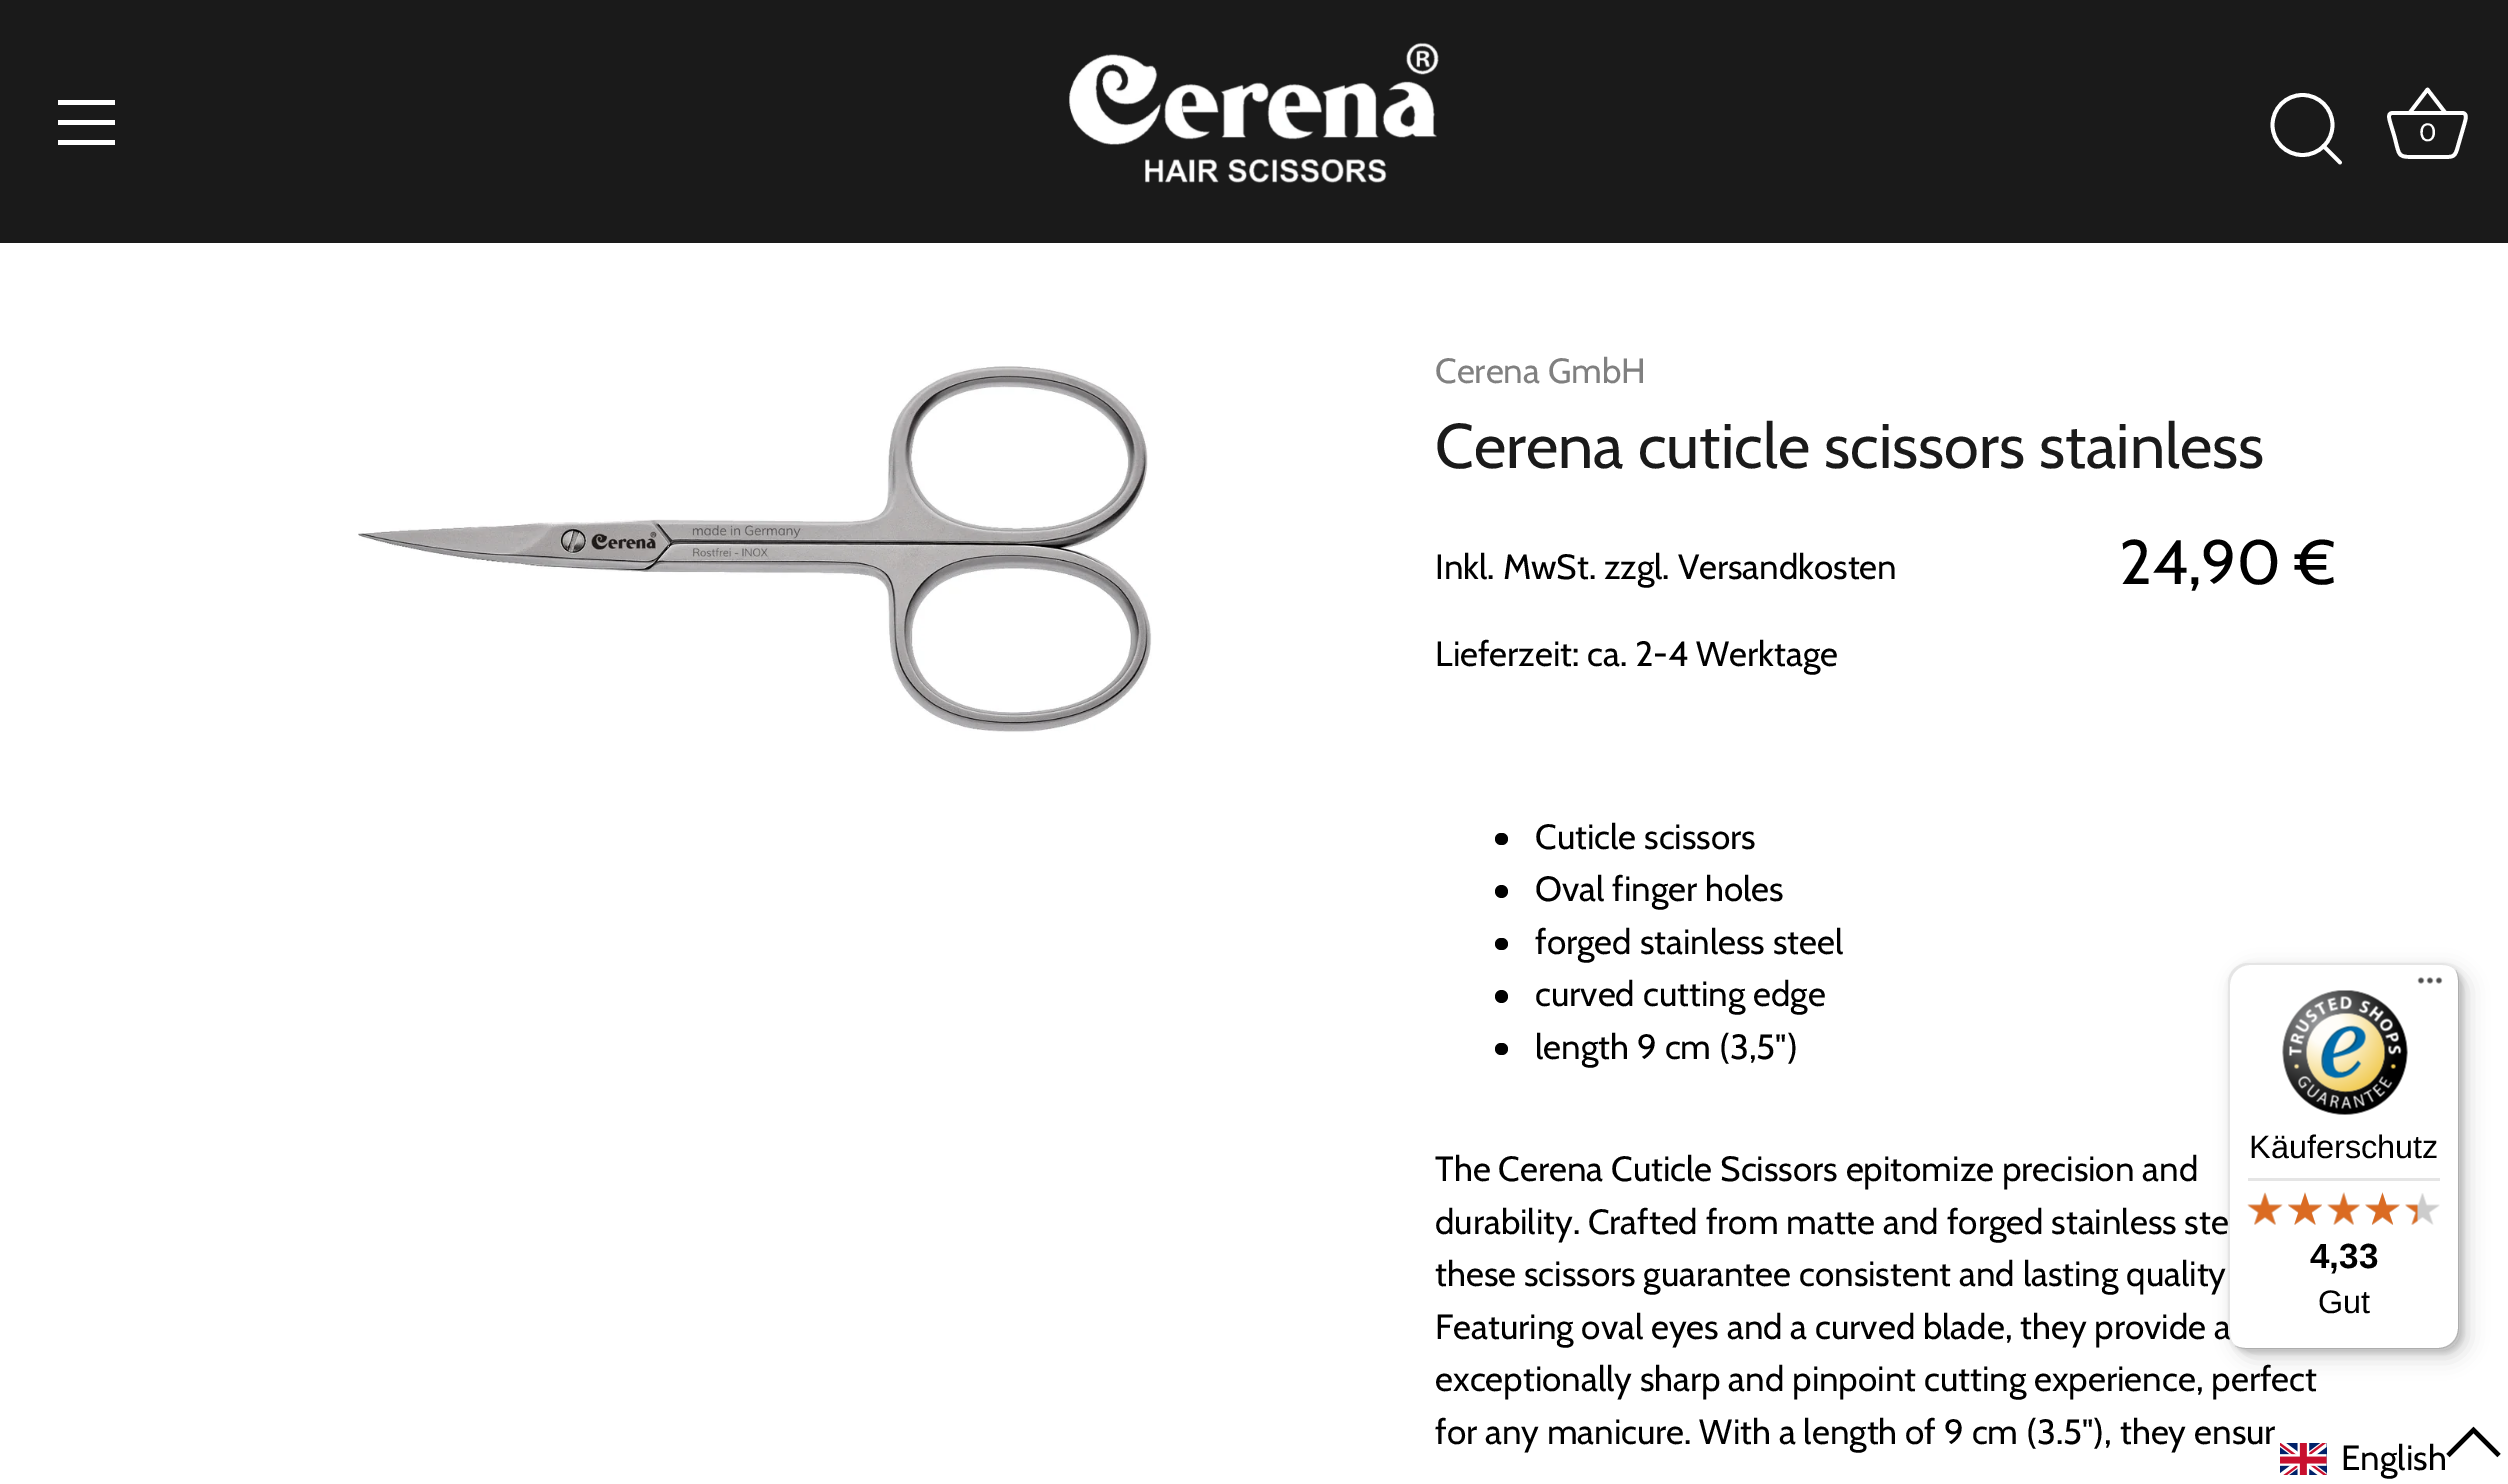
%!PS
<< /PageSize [2508 1484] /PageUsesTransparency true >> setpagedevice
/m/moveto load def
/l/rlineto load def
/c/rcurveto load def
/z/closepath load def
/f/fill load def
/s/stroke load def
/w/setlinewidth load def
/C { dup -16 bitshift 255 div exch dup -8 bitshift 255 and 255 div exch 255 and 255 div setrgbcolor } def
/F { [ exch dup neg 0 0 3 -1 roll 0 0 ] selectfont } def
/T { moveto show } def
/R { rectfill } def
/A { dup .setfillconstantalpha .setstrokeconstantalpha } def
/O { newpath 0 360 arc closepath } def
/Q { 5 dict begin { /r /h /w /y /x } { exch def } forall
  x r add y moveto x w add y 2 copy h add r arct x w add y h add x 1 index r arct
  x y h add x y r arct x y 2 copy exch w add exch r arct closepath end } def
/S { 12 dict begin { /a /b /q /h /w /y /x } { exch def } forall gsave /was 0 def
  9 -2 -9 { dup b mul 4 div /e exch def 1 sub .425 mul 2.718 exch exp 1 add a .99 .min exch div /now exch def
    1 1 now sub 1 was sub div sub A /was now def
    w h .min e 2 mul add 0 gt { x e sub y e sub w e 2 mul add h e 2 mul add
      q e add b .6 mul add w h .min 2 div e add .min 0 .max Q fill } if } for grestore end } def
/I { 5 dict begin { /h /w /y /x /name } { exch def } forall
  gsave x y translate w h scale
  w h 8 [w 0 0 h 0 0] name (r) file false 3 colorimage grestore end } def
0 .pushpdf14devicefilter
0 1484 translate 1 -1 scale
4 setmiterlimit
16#FFFFFF C
0 0 2508 1484 R
16#1A1A1A C
0 0 2508 243 R
16#FFFFFF C
58 100 57 5 R
58 120 57 5 R
58 140 57 5 R
(1.rgb) 1069 42 370 141 I
3.8 w
2302.5 125 30 O s
1 setlinecap
1 setlinejoin
2340 162.5 m -16.5 -16.5 l s
3.7 w
0 setlinecap
2392.5 113 m -6 0 -2.5 8 -2 10.5 c 3.5 11.5 l 6.5 23.5 2 22 26.5 22 c 21.5 0 l 11.5 0 13 .5 16 -11 c 6.5 -22.5 l .5 -2.5 3.5 -9.5 -1.5 -10.5 c -70.5 0 l s
2409.5 113 m 18 -23.5 l 18 23.5 l s
/Cabin-Regular 25 F
(0) 2419 141 T
(2.rgb) 358 366 794 367 I
/Cabin-Regular 35 F
16#808080 C
(Cerena GmbH) 1435 383 T
/Cabin-Regular 63 F
16#1A1A1A C
(Cerena cuticle scissors stainless) 1435 468 T
/Cabin-Regular 35 F
16#000000 C
(Inkl. MwSt. zzgl. Versandkosten) 1435 579 T
(Lieferzeit: ca. 2-4 Werktage) 1435 666 T
/Cabin-Regular 62.5 F
(24,90 €) 2119 584 T
1495 833 13 12 6 Q f
/Cabin-Regular 35 F
(Cuticle scissors) 1535 849 T
1501.5 891.5 6.5 O f
(Oval finger holes) 1535 901 T
1495 938 13 12 6 Q f
(forged stainless steel) 1535 954 T
1501.5 996.5 6.5 O f
(curved cutting edge) 1535 1006 T
1495 1043 13 12 6 Q f
(length 9 cm \(3,5"\)) 1535 1059 T
(The Cerena Cuticle Scissors epitomize precision and) 1435 1181 T
(durability. Crafted from matte and forged stainless ste) 1435 1234 T
(these scissors guarantee consistent and lasting quality) 1435 1286 T
(Featuring oval eyes and a curved blade, they provide a) 1435 1339 T
(exceptionally sharp and pinpoint cutting experience, perfect) 1435 1391 T
(for any manicure. With a length of 9 cm \(3.5"\), they ensur) 1435 1444 T
2235 970 233 388 20 10 .15 S
2230 965 233 388 20 2.5 .15 S
16#FFFFFF C
2228 963 232 387 20 Q f
0.1 A
16#000000 C
2250 965 m 192 0 l 5 0 9 1 12 4 c -4 -4 -9 -6 -14 -6 c -192 0 l -11 0 -20 9 -20 20 c 0 347 l 0 5 2 10 6 14 c -3 -3 -4 -7 -4 -12 c 0 -347 l 0 -11 9 -20 20 -20 c z f
0.2 A
2235 1346 m 4 2 8 4 13 4 c 192 0 l 11 0 20 -9 20 -20 c 0 -347 l 0 -5 -2 -9 -4 -13 c 1 3 2 7 2 10 c 0 348 l 0 11 -9 20 -20 20 c -193 0 l -3 0 -7 -1 -10 -2 c z f
16#323232 C
2234 1344 m 4 4 9 6 14 6 c 192 0 l 11 0 20 -9 20 -20 c 0 -347 l 0 -5 -2 -10 -6 -14 c 3 3 4 7 4 12 c 0 347 l 0 12 -8 20 -20 20 c -192 0 l -5 0 -9 -1 -12 -4 c z f
0.3 A
16#FFFFFF C
2238 1347 m 3 2 6 3 10 3 c 192 0 l 11 0 20 -9 20 -20 c 0 -347 l 0 -4 -1 -7 -3 -10 c 1 2 2 5 2 8 c 0 348 l 0 11 -9 20 -20 20 c -193 0 l -3 0 -6 -1 -8 -2 c z f
1 A
(3.rgb) 2417 977 26 7 I
(4.rgb) 2282 990 126 125 I
/LiberationSans-Regular 32.5 F
16#000000 C
(Käuferschutz) 2249 1158 T
16#E5E5E5 C
2248 1178 192 3 R
(10.rgb) 2248 1193 34 32 I
(5.rgb) 2247 1192 36 33 I
(11.rgb) 2288 1192 34 33 I
(6.rgb) 2288 1192 34 33 I
(12.rgb) 2327 1192 33 33 I
(7.rgb) 2327 1192 33 33 I
(13.rgb) 2365 1192 35 33 I
(8.rgb) 2365 1192 35 33 I
(14.rgb) 2405 1193 35 32 I
(9.rgb) 2405 1204 13 21 I
/LiberationSans-Bold 35 F
16#000000 C
(4,33) 2310 1268 T
/LiberationSans-Regular 32.5 F
(Gut) 2318 1313 T
16#FFFFFF C
2273 1430 1 1 R
(15.rgb) 2280 1443 47 32 I
/Cabin-Regular 35 F
16#000000 C
(English) 2341 1470 T
4.3 w
0 setlinejoin
2499 1455.5 m -25.5 -25.5 l -25.5 25.5 l s
.poppdf14devicefilter showpage
